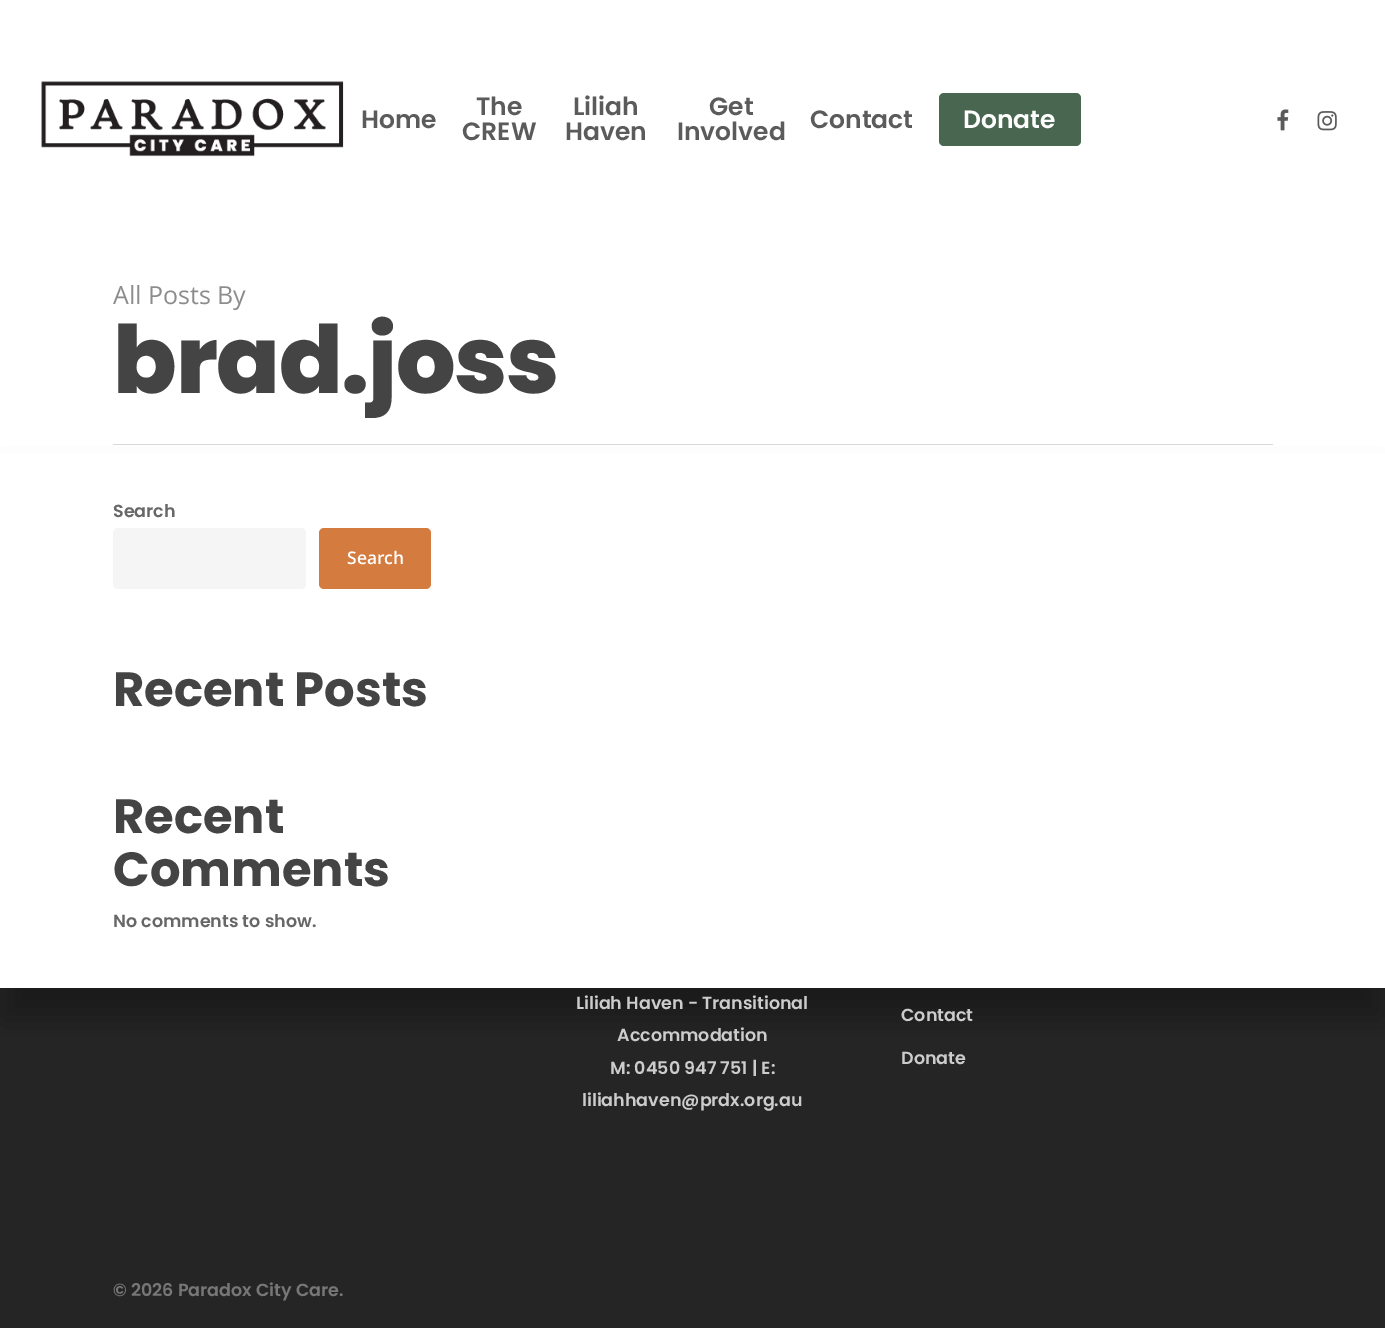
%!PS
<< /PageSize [1385 1328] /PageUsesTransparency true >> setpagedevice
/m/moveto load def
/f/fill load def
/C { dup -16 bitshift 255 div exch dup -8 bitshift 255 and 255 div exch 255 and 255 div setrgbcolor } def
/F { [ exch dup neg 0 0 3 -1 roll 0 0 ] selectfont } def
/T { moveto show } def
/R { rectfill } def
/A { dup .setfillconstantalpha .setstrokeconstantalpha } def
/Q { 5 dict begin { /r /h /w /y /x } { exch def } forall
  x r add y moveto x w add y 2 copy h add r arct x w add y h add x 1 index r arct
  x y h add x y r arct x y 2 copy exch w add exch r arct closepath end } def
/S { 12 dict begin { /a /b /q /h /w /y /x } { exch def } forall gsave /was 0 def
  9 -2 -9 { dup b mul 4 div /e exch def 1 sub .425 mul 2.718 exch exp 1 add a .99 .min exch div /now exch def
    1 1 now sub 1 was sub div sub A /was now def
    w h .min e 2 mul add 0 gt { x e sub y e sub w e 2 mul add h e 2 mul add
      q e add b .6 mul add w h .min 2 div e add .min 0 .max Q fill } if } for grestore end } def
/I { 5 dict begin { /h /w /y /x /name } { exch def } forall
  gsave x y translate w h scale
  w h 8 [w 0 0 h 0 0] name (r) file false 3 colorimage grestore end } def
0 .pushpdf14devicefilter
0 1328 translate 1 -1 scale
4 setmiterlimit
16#FFFFFF C
0 0 1385 1328 R
(1.rgb) 41 81 303 76 I
/Poppins-SemiBold 25 F
16#5B5B5B C
(Home) 361 128 T
(The) 476 115 T
(CREW) 462 140 T
(Liliah) 573 115 T
(Haven) 565 140 T
(Get) 709 115 T
(Involved) 677 140 T
(Contact) 810 128 T
16#496650 C
939 93 142 53 5 Q f
16#FFFFFF C
(Donate) 963 128 T
(2.rgb) 1277 109 12 22 I
(3.rgb) 1317 111 20 20 I
16#252525 C
0 988 1385 340 R
16#000000 C
3 481 1380 538 0 15.5 .3 S
16#D8D8D8 C
113 444 1160 1 R
/OpenSans-Regular 25 F
16#8C8C8C C
(All Posts By) 113 304 T
/Poppins-ExtraBold 93.75 F
16#444444 C
113 393 m -1.25 0 (brad.joss) ashow
16#FFFFFF C
0 453 1385 535 R
/Poppins-SemiBold 17.5 F
16#676767 C
(Search) 113 517 T
16#F5F5F5 C
113 528 193 61 5 Q f
16#D47B40 C
319 528 112 61 5 Q f
/OpenSans-SemiBold 17.5 F
16#FFFFFF C
(Search) 347 564 T
/Poppins-Bold 48 F
16#444444 C
(Recent Posts) 113 706 T
(Recent) 113 833 T
(Comments) 113 886 T
/Poppins-SemiBold 17.5 F
16#676767 C
(No comments to show.) 113 927 T
16#CCCCCC C
(Liliah Haven - Transitional) 576 1009 T
(Accommodation) 617 1041 T
(M: 0450 947 751 | E:) 610 1074 T
(liliahhaven@prdx.org.au) 582 1106 T
(Contact) 901 1021 T
(Donate) 901 1064 T
16#777777 C
(© 2026 Paradox City Care.) 113 1296 T
.poppdf14devicefilter showpage
